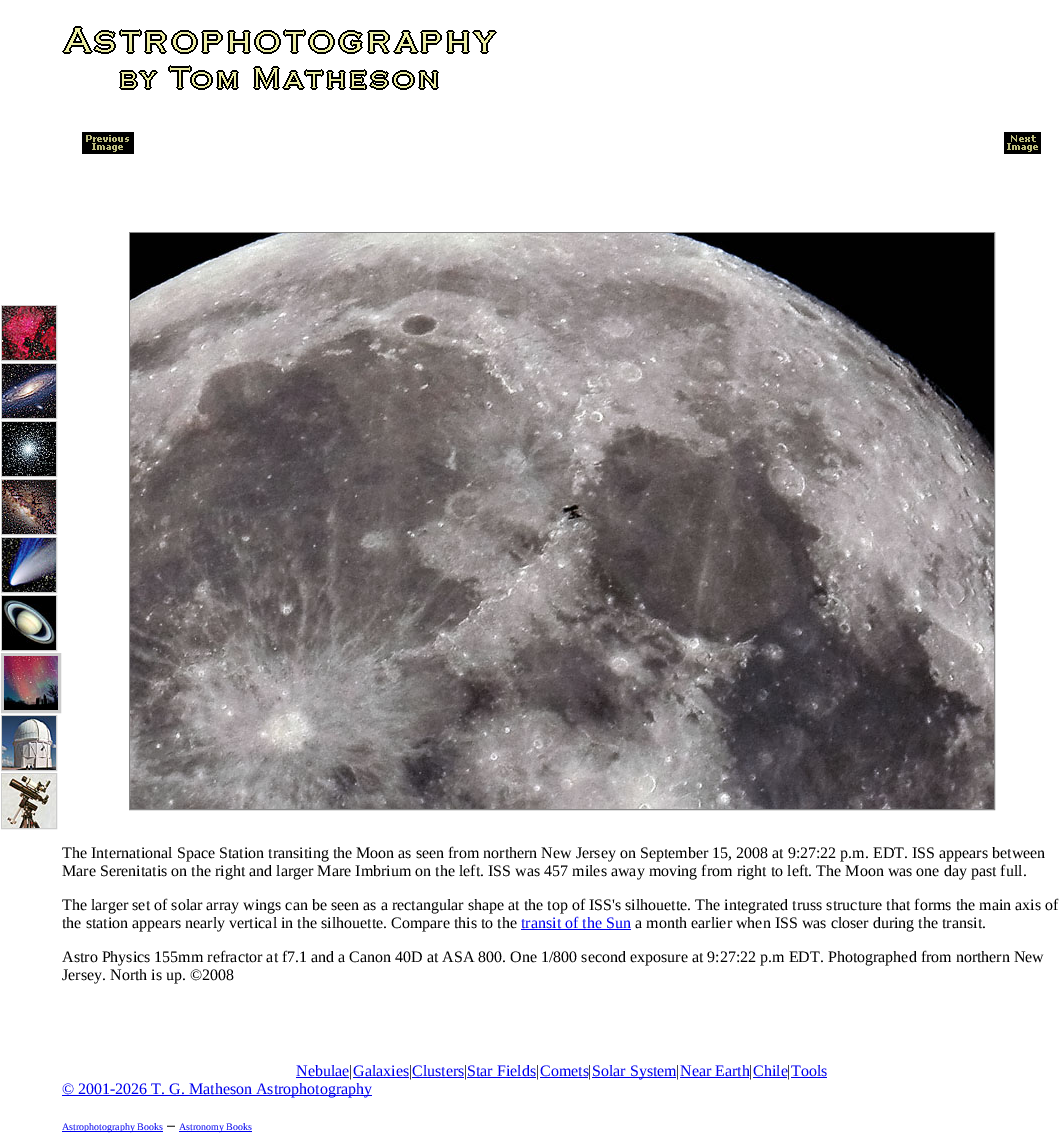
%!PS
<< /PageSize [1061 1134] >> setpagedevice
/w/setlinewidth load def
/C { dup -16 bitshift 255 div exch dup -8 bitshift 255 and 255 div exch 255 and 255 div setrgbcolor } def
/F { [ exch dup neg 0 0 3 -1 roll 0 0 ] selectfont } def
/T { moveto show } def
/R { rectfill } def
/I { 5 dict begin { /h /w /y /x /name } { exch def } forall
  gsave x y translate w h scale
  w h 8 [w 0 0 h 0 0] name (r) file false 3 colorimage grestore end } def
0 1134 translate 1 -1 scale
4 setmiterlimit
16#FFFFFF C
0 0 1061 1134 R
(1.rgb) 62 26 435 64 I
16#CCCCCC C
1.5 305.5 55 55 rectstroke
(2.rgb) 2 306 54 54 I
1.5 363.5 55 55 rectstroke
(3.rgb) 2 364 54 54 I
1.5 421.5 55 55 rectstroke
(4.rgb) 2 422 54 54 I
1.5 479.5 55 55 rectstroke
(5.rgb) 2 480 54 54 I
1.5 537.5 55 55 rectstroke
(6.rgb) 2 538 54 54 I
1.5 595.5 55 55 rectstroke
(7.rgb) 2 596 54 54 I
3 w
2.5 654.5 57 57 rectstroke
(8.rgb) 4 656 54 54 I
1 w
1.5 715.5 55 55 rectstroke
(9.rgb) 2 716 54 54 I
1.5 773.5 55 55 rectstroke
(10.rgb) 2 774 54 54 I
(11.rgb) 82 132 52 22 I
(12.rgb) 1004 132 37 22 I
16#888888 C
129.5 232.5 865 577 rectstroke
(13.rgb) 130 233 864 576 I
/LiberationSerif-Regular 16 F
16#000000 C
(The International Space Station transiting the Moon as seen from northern New Jersey on September 15, 2008 at 9:27:22 p.m. EDT. ISS appears between) 62 858 T
(Mare Serenitatis on the right and larger Mare Imbrium on the left. ISS was 457 miles away moving from right to left. The Moon was one day past full.) 62 876 T
(The larger set of solar array wings can be seen as a rectangular shape at the top of ISS's silhouette. The integrated truss structure that forms the main axis of) 62 910 T
(the station appears nearly vertical in the silhouette. Compare this to the) 62 928 T
16#0000EE C
(transit of the Sun) 521 928 T
521 929 110 1 R
16#000000 C
(a month earlier when ISS was closer during the transit.) 635 928 T
(Astro Physics 155mm refractor at f7.1 and a Canon 40D at ASA 800. One 1/800 second exposure at 9:27:22 p.m EDT. Photographed from northern New) 62 962 T
(Jersey. North is up. ©2008) 62 980 T
16#0000EE C
(Nebulae) 296 1076 T
296 1077 53 1 R
16#000000 C
(|) 349 1076 T
16#0000EE C
(Galaxies) 353 1076 T
353 1077 56 1 R
16#000000 C
(|) 409 1076 T
16#0000EE C
(Clusters) 412 1076 T
412 1077 52 1 R
16#000000 C
(|) 464 1076 T
16#0000EE C
(Star Fields) 467 1076 T
467 1077 69 1 R
16#000000 C
(|) 536 1076 T
16#0000EE C
(Comets) 540 1076 T
540 1077 48 1 R
16#000000 C
(|) 588 1076 T
16#0000EE C
592 1077 84 1 R
(Solar System) 592 1076 T
16#000000 C
(|) 676 1076 T
16#0000EE C
(Near Earth) 680 1076 T
680 1077 69 1 R
16#000000 C
(|) 749 1076 T
16#0000EE C
(Chile) 753 1076 T
753 1077 34 1 R
16#000000 C
(|) 787 1076 T
16#0000EE C
(Tools) 791 1076 T
791 1077 36 1 R
62 1095 310 1 R
(© 2001-2026 T. G. Matheson Astrophotography) 62 1094 T
62 1131 101 1 R
/LiberationSerif-Regular 10 F
(Astrophotography Books) 62 1130 T
/LiberationSerif-Regular 16 F
16#000000 C
(–) 167 1130 T
16#0000EE C
179 1131 73 1 R
/LiberationSerif-Regular 10 F
(Astronomy Books) 179 1130 T
showpage
